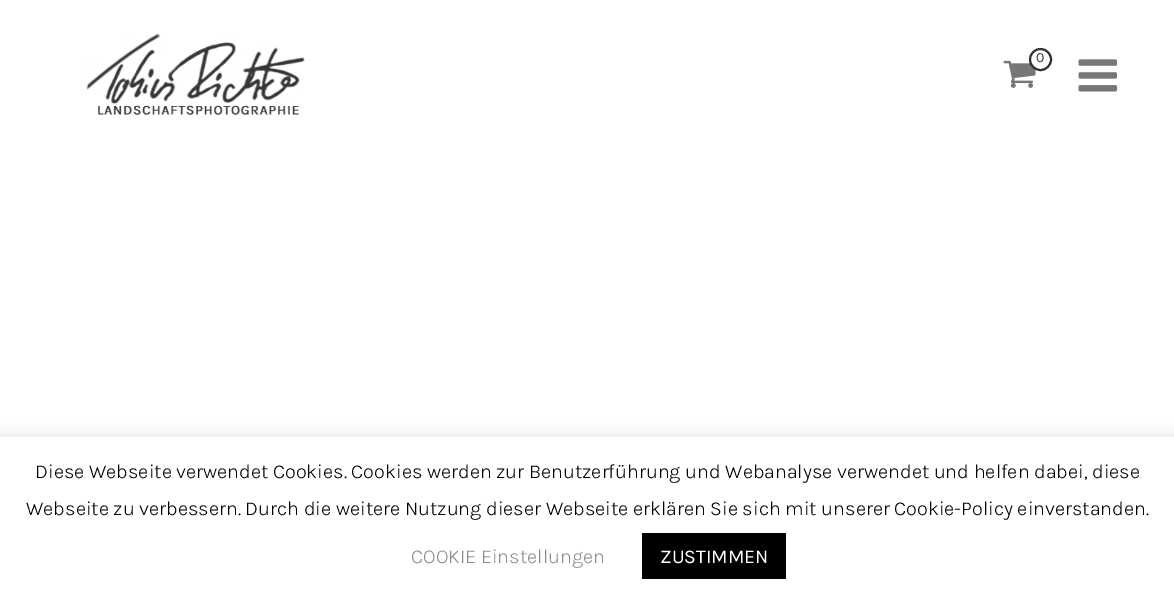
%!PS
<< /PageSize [1174 601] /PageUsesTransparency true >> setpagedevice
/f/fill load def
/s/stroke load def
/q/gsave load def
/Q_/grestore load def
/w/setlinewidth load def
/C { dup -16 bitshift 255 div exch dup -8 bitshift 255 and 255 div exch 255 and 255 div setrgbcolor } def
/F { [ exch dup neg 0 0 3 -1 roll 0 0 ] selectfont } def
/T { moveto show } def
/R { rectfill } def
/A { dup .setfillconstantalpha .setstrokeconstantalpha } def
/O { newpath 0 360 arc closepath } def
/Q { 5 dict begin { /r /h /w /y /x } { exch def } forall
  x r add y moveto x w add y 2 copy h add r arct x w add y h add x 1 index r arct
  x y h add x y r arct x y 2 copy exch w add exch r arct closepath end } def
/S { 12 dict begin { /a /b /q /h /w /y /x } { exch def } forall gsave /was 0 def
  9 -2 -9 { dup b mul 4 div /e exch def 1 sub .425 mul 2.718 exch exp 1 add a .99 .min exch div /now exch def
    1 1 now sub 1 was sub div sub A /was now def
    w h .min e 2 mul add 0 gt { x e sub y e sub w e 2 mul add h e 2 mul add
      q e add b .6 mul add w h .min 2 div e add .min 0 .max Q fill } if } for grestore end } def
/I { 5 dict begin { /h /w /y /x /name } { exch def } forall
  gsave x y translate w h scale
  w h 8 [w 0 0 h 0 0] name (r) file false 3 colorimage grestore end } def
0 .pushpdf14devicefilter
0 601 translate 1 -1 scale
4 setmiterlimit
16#FFFFFF C
0 0 1174 601 R
(1.rgb) 85 33 220 82 I
(2.rgb) 1078 59 40 33 I
(3.rgb) 1003 60 33 28 I
1040.5 59.5 10.5 O q f Q_
16#303030 C
2 w
s
/Karla-Regular 14 F
(0) 1036 62 T
16#ACABAB C
0 435 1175 165 0 7.5 .3 S
16#FFFFFF C
0 437 1174 164 R
/Karla-Light 20 F
16#000000 C
(Diese Webseite verwendet Cookies. Cookies werden zur Benutzerführung und Webanalyse verwendet und helfen dabei, diese) 35 478 T
(Webseite zu verbessern. Durch die weitere Nutzung dieser Webseite erklären Sie sich mit unserer Cookie-Policy einverstanden.) 26 515 T
16#8C8C8C C
(COOKIE Einstellungen) 411 563 T
16#000000 C
642 533 144 46 R
/Karla-Regular 19.5 F
16#FFFFFF C
(ZUSTIMMEN) 660 563 T
.poppdf14devicefilter showpage
